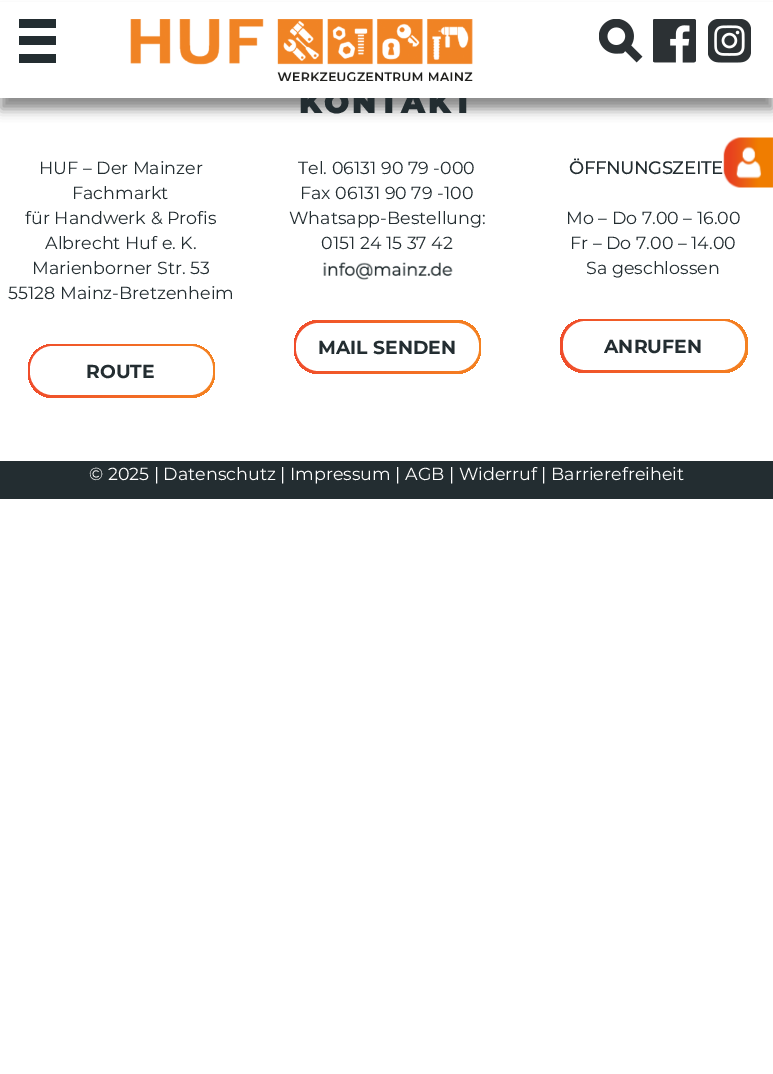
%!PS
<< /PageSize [773 1074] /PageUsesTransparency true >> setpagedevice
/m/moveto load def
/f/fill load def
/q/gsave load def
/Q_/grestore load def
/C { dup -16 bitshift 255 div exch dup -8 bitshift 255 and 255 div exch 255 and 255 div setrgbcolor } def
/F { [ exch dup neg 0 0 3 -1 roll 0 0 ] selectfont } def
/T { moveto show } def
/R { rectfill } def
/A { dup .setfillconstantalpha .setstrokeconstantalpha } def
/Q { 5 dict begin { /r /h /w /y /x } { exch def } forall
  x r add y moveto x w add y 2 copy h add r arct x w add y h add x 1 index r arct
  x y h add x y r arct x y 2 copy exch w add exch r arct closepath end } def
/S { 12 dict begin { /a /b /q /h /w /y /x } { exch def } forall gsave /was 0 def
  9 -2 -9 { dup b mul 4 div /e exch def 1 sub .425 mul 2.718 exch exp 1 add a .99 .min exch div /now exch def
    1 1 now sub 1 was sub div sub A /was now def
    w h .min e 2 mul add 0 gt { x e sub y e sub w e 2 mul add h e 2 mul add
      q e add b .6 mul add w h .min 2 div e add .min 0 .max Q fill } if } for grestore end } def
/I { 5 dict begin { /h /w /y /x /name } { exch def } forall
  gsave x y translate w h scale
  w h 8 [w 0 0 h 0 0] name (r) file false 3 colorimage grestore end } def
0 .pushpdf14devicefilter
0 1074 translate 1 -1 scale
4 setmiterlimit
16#FFFFFF C
0 0 773 1074 R
16#000000 C
1 14 772 95 0 6 .46 S
/Montserrat-Black 30 F
16#232D31 C
299 113 m 2.5 0 (KONTAKT) ashow
16#FFFFFF C
0 2 773 96 R
16#232D31 C
19 19 37 9 R
19 36 37 9 R
19 54 37 9 R
(1.rgb) 130 19 343 62 I
(2.rgb) 599 19 44 44 I
(3.rgb) 653 19 43 44 I
(4.rgb) 708 19 43 44 I
/Montserrat-Regular 17.5 F
(HUF – Der Mainzer) 39 174 T
(Fachmarkt) 72 199 T
(für Handwerk & Profis) 25 224 T
(Albrecht Huf e. K.) 45 249 T
(Marienborner Str. 53) 32 274 T
(55128 Mainz-Bretzenheim) 8 299 T
q 28 344 187 54 25 Q clip newpath
<< /ShadingType 2 /ColorSpace /DeviceRGB /Coords [28 371 215 371] /Extend [true true] /Function << /FunctionType 2 /Domain [0 1] /C0 [.941 .302 .173] /C1 [.961 .51 .129] /N 1 >> >> shfill Q_
16#FFFFFF C
30 346 183 49 23 Q f
/Montserrat-Bold 18.75 F
16#232D31 C
(ROUTE) 86 378 T
/Montserrat-Regular 17.5 F
(Tel. 06131 90 79 -000) 298 174 T
(Fax 06131 90 79 -100) 300 199 T
(Whatsapp-Bestellung:) 289 224 T
(0151 24 15 37 42) 321 249 T
(5.rgb) 323 262 130 18 I
q 294 320 187 54 25 Q clip newpath
<< /ShadingType 2 /ColorSpace /DeviceRGB /Coords [294 347 481 347] /Extend [true true] /Function << /FunctionType 2 /Domain [0 1] /C0 [.941 .302 .173] /C1 [.961 .51 .129] /N 1 >> >> shfill Q_
16#FFFFFF C
296 323 183 48 23 Q f
/Montserrat-Bold 18.75 F
16#232D31 C
(MAIL SENDEN) 318 354 T
/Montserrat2-Bold 17.5 F
(ÖFFNUNGSZEITE) 569 174 T
/Montserrat-Regular 17.5 F
(Mo – Do 7.00 – 16.00) 566 224 T
(Fr – Do 7.00 – 14.00) 570 249 T
(Sa geschlossen) 586 274 T
q 560 319 188 54 25 Q clip newpath
<< /ShadingType 2 /ColorSpace /DeviceRGB /Coords [560 346 748 346] /Extend [true true] /Function << /FunctionType 2 /Domain [0 1] /C0 [.941 .302 .173] /C1 [.961 .51 .129] /N 1 >> >> shfill Q_
16#FFFFFF C
563 321 182 49 23 Q f
/Montserrat-Bold 18.75 F
16#232D31 C
(ANRUFEN) 604 353 T
0 461 773 38 R
/Montserrat-Regular 17.5 F
16#FFFFFF C
(© 2025 | Datenschutz | Impressum | AGB | Widerruf | Barrierefreiheit) 89 480 T
(6.rgb) 723 137 50 51 I
.poppdf14devicefilter showpage
